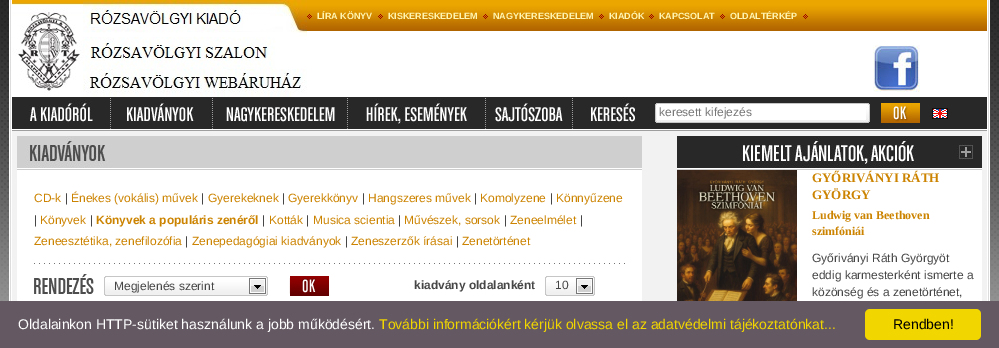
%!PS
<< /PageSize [999 348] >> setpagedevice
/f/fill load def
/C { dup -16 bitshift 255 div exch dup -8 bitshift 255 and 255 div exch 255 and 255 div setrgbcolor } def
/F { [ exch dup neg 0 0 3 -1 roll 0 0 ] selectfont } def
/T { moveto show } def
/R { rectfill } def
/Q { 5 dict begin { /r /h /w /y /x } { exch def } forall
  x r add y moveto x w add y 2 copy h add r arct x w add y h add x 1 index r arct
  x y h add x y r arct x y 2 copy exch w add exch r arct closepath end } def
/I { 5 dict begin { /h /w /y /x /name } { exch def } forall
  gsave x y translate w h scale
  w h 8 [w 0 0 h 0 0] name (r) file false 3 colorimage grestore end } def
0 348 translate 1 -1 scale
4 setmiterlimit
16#FFFFFF C
0 0 999 348 R
(1.rgb) 0 0 999 301 I
989 0 1 301 R
9 0 1 301 R
16#DCDCDC C
988 0 1 301 R
10 0 1 301 R
16#FFFFFF C
987 0 1 301 R
11 0 1 301 R
(2.rgb) 12 0 71 97 I
(3.rgb) 83 0 224 37 I
(4.rgb) 83 37 224 32 I
(5.rgb) 83 69 224 28 I
(6.rgb) 307 0 680 97 I
(7.rgb) 307 14 5 5 I
/LiberationSans-Bold 9 F
16#FFF5B1 C
(LÍRA KÖNYV) 317 19 T
(7.rgb) 378 14 5 5 I
(KISKERESKEDELEM) 388 19 T
(7.rgb) 483 14 5 5 I
(NAGYKERESKEDELEM) 493 19 T
(7.rgb) 599 14 5 5 I
(KIADÓK) 609 19 T
(7.rgb) 649 14 5 5 I
(KAPCSOLAT) 659 19 T
(7.rgb) 720 14 5 5 I
(OLDALTÉRKÉP) 730 19 T
(7.rgb) 803 14 5 5 I
(8.rgb) 873 45 47 47 I
(9.rgb) 12 97 975 34 I
(10.rgb) 29 100 64 23 I
(11.rgb) 110 98 1 31 I
(12.rgb) 127 98 68 24 I
(11.rgb) 212 98 1 31 I
(13.rgb) 226 107 109 15 I
(11.rgb) 347 98 1 31 I
(14.rgb) 366 99 101 26 I
(11.rgb) 485 98 1 31 I
(15.rgb) 495 103 68 19 I
(11.rgb) 572 98 1 31 I
(16.rgb) 591 97 45 26 I
(17.rgb) 655 103 215 21 I
16#FFFFFF C
657 104 209 16 R
/LiberationSans-Regular 12 F
16#777777 C
(keresett kifejezés) 659 116 T
(18.rgb) 881 103 39 20 I
(19.rgb) 932 108 16 11 I
16#F2F2F2 C
12 131 975 170 R
(20.rgb) 17 136 625 35 I
16#FFFFFF C
17 171 625 130 R
16#CC8300 C
(CD-k) 34 202 T
16#464646 C
(|) 65 202 T
16#CC8300 C
(Énekes \(vokális\) művek) 71 202 T
16#464646 C
(|) 201 202 T
16#CC8300 C
(Gyerekeknek) 208 202 T
16#464646 C
(|) 282 202 T
16#CC8300 C
(Gyerekkönyv) 288 202 T
16#464646 C
(|) 362 202 T
16#CC8300 C
(Hangszeres művek) 368 202 T
16#464646 C
(|) 474 202 T
16#CC8300 C
(Komolyzene) 480 202 T
16#464646 C
(|) 550 202 T
16#CC8300 C
(Könnyűzene) 556 202 T
16#464646 C
(|) 34 224 T
16#CC8300 C
(Könyvek) 40 224 T
16#464646 C
(|) 90 224 T
/LiberationSans-Bold 12 F
16#CC8300 C
(Könyvek a populáris zenéről) 96 224 T
/LiberationSans-Regular 12 F
16#464646 C
(|) 262 224 T
16#CC8300 C
(Kották) 269 224 T
16#464646 C
(|) 306 224 T
16#CC8300 C
(Musica scientia) 313 224 T
16#464646 C
(|) 398 224 T
16#CC8300 C
(Művészek, sorsok) 404 224 T
16#464646 C
(|) 504 224 T
16#CC8300 C
(Zeneelmélet) 510 224 T
16#464646 C
(|) 580 224 T
16#CC8300 C
(Zeneesztétika, zenefilozófia) 34 245 T
16#464646 C
(|) 185 245 T
16#CC8300 C
(Zenepedagógiai kiadványok) 192 245 T
16#464646 C
(|) 345 245 T
16#CC8300 C
(Zeneszerzők írásai) 351 245 T
16#464646 C
(|) 456 245 T
16#CC8300 C
(Zenetörténet) 462 245 T
(21.rgb) 34 263 591 1 I
(22.rgb) 34 274 60 20 I
(23.rgb) 246 276 22 20 I
(24.rgb) 104 276 142 20 I
16#464646 C
(Megjelenés szerint) 114 290 T
(25.rgb) 289 276 40 20 I
/LiberationSans-Bold 12 F
(kiadvány oldalanként) 414 289 T
(23.rgb) 573 276 22 20 I
(26.rgb) 545 276 28 20 I
/LiberationSans-Regular 12 F
(10) 555 289 T
(27.rgb) 677 136 305 34 I
16#FFFFFF C
797 170 185 131 R
(28.rgb) 677 170 120 131 I
/LiberationSerif-Bold 13 F
16#CC8300 C
(GYŐRIVÁNYI RÁTH) 812 182 T
(GYÖRGY) 812 199 T
/LiberationSerif-Bold 12 F
(Ludwig van Beethoven) 812 219 T
(szimfóniái) 812 235 T
/LiberationSans-Regular 12 F
16#464646 C
(Győriványi Ráth Györgyöt) 812 262 T
(eddig karmesterként ismerte a) 812 279 T
(közönség és a zenetörténet,) 812 296 T
16#645862 C
0 301 999 47 R
/LiberationSans-Regular 14 F
16#FFFFFF C
(Oldalainkon HTTP-sütiket használunk a jobb működésért.) 18 329 T
16#F1D600 C
(További információkért kérjük olvassa el az adatvédelmi tájékoztatónkat...) 379 329 T
865 309 116 31 5 Q f
16#000000 C
(Rendben!) 893 329 T
showpage
